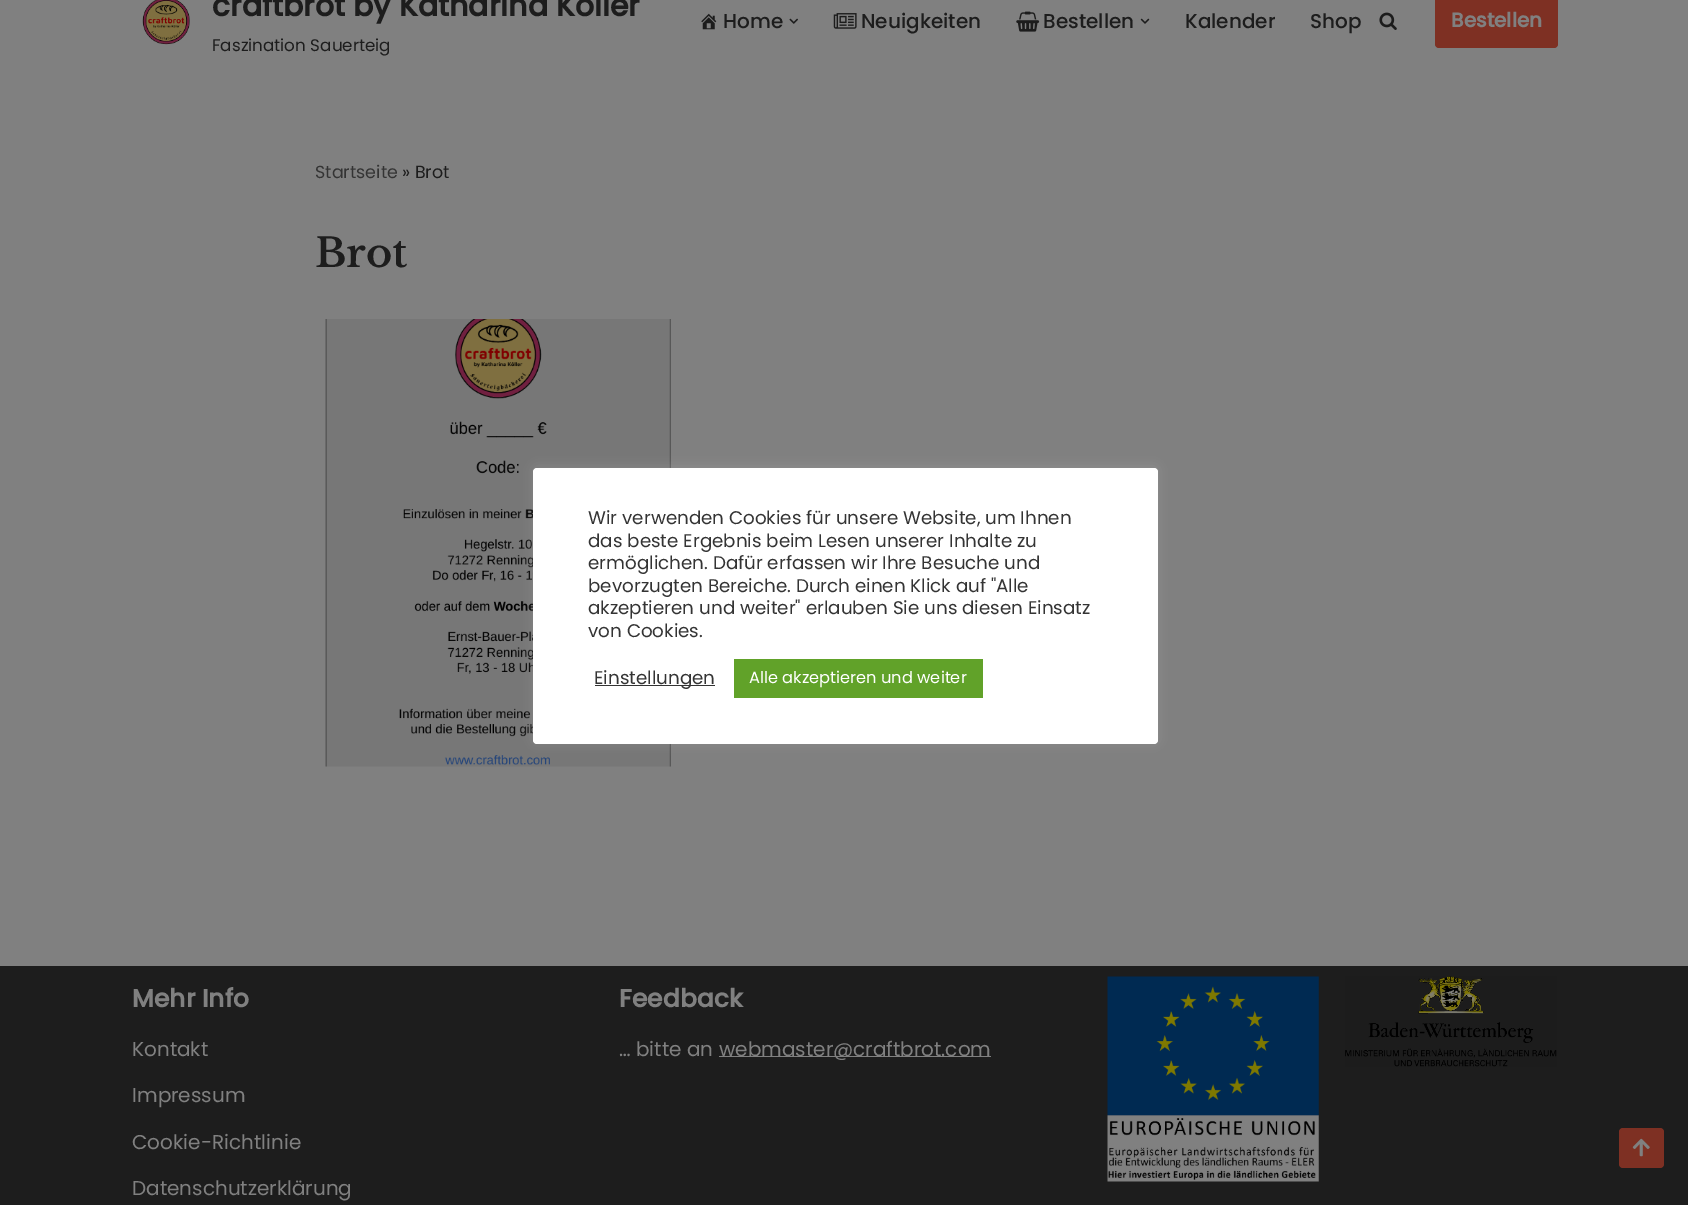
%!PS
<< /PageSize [1688 1205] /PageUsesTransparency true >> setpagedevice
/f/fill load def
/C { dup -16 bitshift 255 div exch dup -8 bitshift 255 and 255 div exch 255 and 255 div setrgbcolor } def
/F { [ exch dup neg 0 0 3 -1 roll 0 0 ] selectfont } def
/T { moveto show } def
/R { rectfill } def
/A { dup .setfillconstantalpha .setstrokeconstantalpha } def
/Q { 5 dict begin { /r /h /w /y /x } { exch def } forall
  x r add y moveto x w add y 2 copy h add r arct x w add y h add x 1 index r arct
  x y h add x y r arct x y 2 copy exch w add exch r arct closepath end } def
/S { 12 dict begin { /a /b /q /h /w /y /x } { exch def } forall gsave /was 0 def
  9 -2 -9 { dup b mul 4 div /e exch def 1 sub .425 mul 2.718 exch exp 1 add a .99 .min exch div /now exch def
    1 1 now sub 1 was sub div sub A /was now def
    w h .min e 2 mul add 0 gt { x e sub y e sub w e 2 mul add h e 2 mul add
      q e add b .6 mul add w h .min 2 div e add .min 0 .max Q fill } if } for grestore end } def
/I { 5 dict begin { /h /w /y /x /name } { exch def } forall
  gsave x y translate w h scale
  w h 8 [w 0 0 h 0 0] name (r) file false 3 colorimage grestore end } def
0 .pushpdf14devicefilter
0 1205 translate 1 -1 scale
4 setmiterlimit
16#808080 C
0 0 1688 1205 R
(1.rgb) 142 0 48 45 I
/Poppins-Bold 30 F
16#1D1D1D C
(craftbrot by Katharina Köller) 212 16 T
/Poppins-Regular 16.75 F
(Faszination Sauerteig) 212 51 T
(2.rgb) 701 13 16 17 I
/Poppins-Medium 20 F
(Home) 723 28 T
(3.rgb) 789 18 9 6 I
(4.rgb) 833 13 24 16 I
(Neuigkeiten) 861 28 T
(5.rgb) 1016 11 24 21 I
(Bestellen) 1043 28 T
(6.rgb) 1140 18 10 6 I
(Kalender) 1185 28 T
(Shop) 1310 28 T
(7.rgb) 1379 12 18 18 I
16#7E3023 C
1435 -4 123 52 4 Q f
/Poppins-Bold 20 F
16#808080 C
(Bestellen) 1451 27 T
/Poppins-Regular 17.5 F
16#343434 C
(Startseite) 315 178 T
16#1D1D1D C
(» Brot) 402 178 T
/LibreBaskerville-SemiBold 40 F
(Brot) 315 267 T
(8.rgb) 325 319 346 448 I
0 966 1688 239 R
/Poppins-Bold 25 F
16#808080 C
(Mehr Info) 132 1007 T
/Poppins-Regular 20 F
(Kontakt) 132 1056 T
(Impressum) 132 1102 T
(Cookie-Richtlinie) 132 1149 T
(Datenschutzerklärung) 132 1195 T
/Poppins-Bold 25 F
(Feedback) 619 1007 T
/Poppins-Regular 20 F
(… bitte an) 619 1056 T
719 1056 272 1 R
(webmaster@craftbrot.com) 719 1056 T
(9.rgb) 1107 976 212 206 I
(10.rgb) 1345 976 212 91 I
16#7E3023 C
1619 1128 45 40 4 Q f
(11.rgb) 1632 1138 18 19 I
16#ACABAB C
533 466 625 277 4 6 .3 S
16#FFFFFF C
533 468 625 276 4 Q f
/Poppins-Regular 18.3 F
16#343434 C
(Wir verwenden Cookies für unsere Website, um Ihnen) 588 524 T
(das beste Ergebnis beim Lesen unserer Inhalte zu) 588 547 T
(ermöglichen. Dafür erfassen wir Ihre Besuche und) 588 569 T
(bevorzugten Bereiche. Durch einen Klick auf "Alle) 588 592 T
(akzeptieren und weiter" erlauben Sie uns diesen Einsatz) 588 614 T
(von Cookies.) 588 637 T
16#333333 C
595 685 120 1 R
16#343434 C
(Einstellungen) 594 684 T
16#61A229 C
734 659 249 39 R
/Poppins-Regular 16.25 F
16#FFFFFF C
(Alle akzeptieren und weiter) 749 683 T
.poppdf14devicefilter showpage
